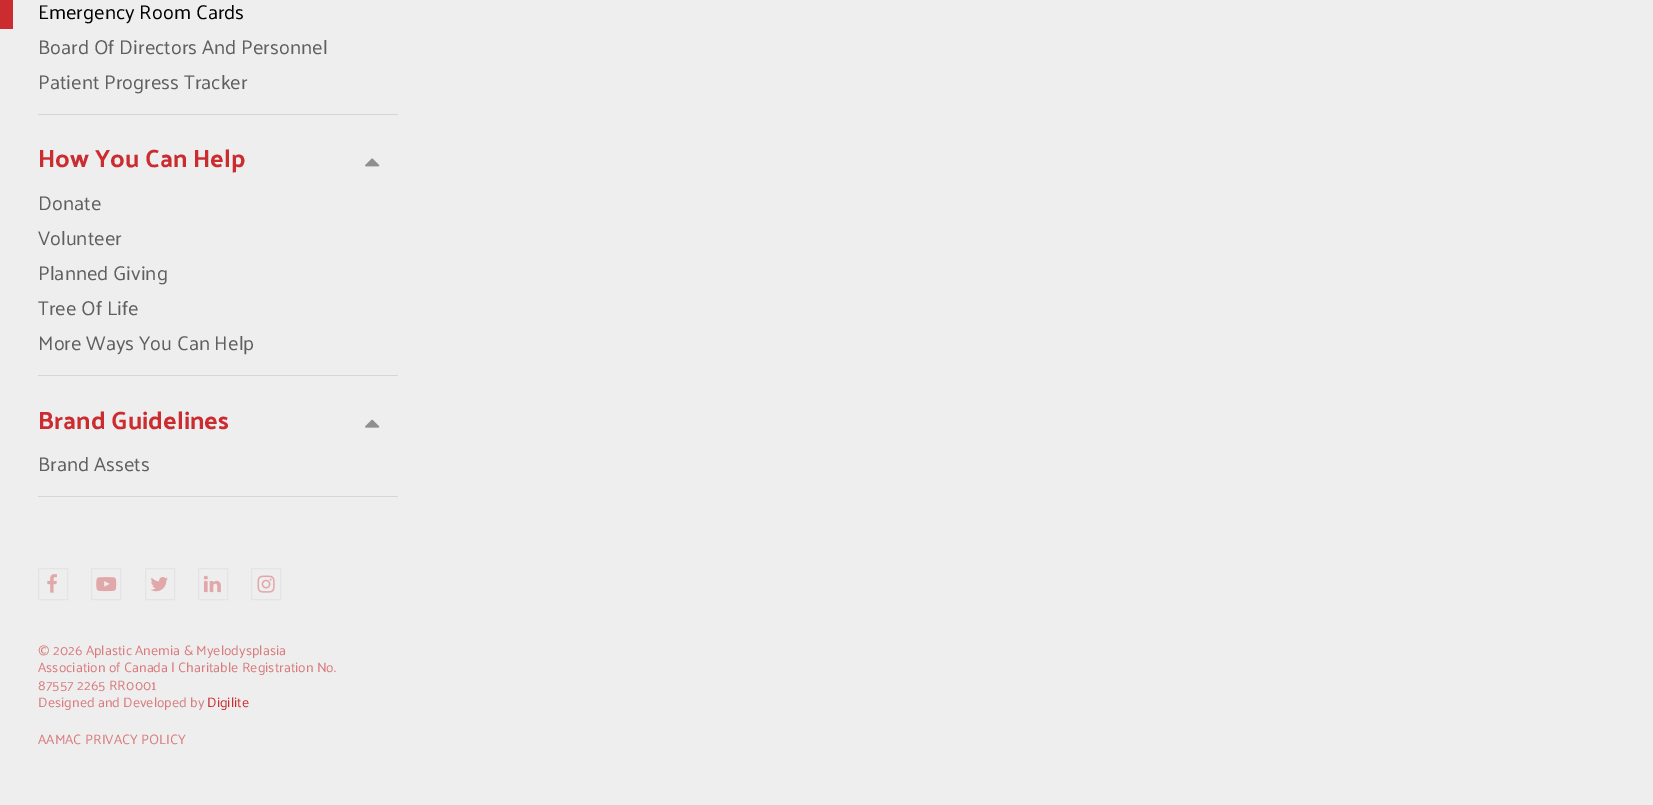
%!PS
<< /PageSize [1653 805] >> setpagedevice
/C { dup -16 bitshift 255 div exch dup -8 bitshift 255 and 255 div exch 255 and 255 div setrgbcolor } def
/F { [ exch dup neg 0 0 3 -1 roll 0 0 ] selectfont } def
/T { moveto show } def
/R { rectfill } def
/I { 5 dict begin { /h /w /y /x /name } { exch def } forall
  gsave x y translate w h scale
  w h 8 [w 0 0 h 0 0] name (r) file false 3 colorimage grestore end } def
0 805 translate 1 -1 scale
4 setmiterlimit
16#EEEEEE C
0 0 1653 805 R
16#D6D6D6 C
38 114 360 1 R
16#CB2C30 C
0 0 13 29 R
/Palanquin-Regular 20 F
16#000000 C
(Emergency Room Cards) 38 19 T
16#5F5F5F C
(Board Of Directors And Personnel) 38 54 T
(Patient Progress Tracker) 38 89 T
16#D6D6D6 C
38 375 360 1 R
/Palanquin-Bold 25 F
16#CB2C30 C
(How You Can Help) 38 167 T
(1.rgb) 365 158 15 9 I
/Palanquin-Regular 20 F
16#5F5F5F C
(Donate) 38 210 T
(Volunteer) 38 245 T
(Planned Giving) 38 280 T
(Tree Of Life) 38 315 T
(More Ways You Can Help) 38 350 T
16#D6D6D6 C
38 496 360 1 R
/Palanquin-Bold 25 F
16#CB2C30 C
(Brand Guidelines) 38 429 T
(2.rgb) 365 419 15 9 I
/Palanquin-Regular 20 F
16#5F5F5F C
(Brand Assets) 38 471 T
16#E4E4E4 C
38.5 568.5 29 31 rectstroke
(3.rgb) 47 574 10 19 I
91.5 568.5 29 31 rectstroke
(4.rgb) 96 577 21 15 I
145.5 568.5 29 31 rectstroke
(5.rgb) 151 577 17 15 I
198.5 568.5 29 31 rectstroke
(6.rgb) 203 575 18 18 I
251.5 568.5 29 31 rectstroke
(7.rgb) 257 575 18 18 I
/Palanquin-Regular 13.75 F
16#D97A7C C
(© 2026 Aplastic Anemia & Myelodysplasia) 38 655 T
(Association of Canada | Charitable Registration No.) 38 672 T
(87557 2265 RR0001) 38 690 T
(Designed and Developed by) 38 707 T
16#CB2C30 C
(Digilite) 207 707 T
16#D97A7C C
(AAMAC PRIVACY POLICY) 38 744 T
showpage
